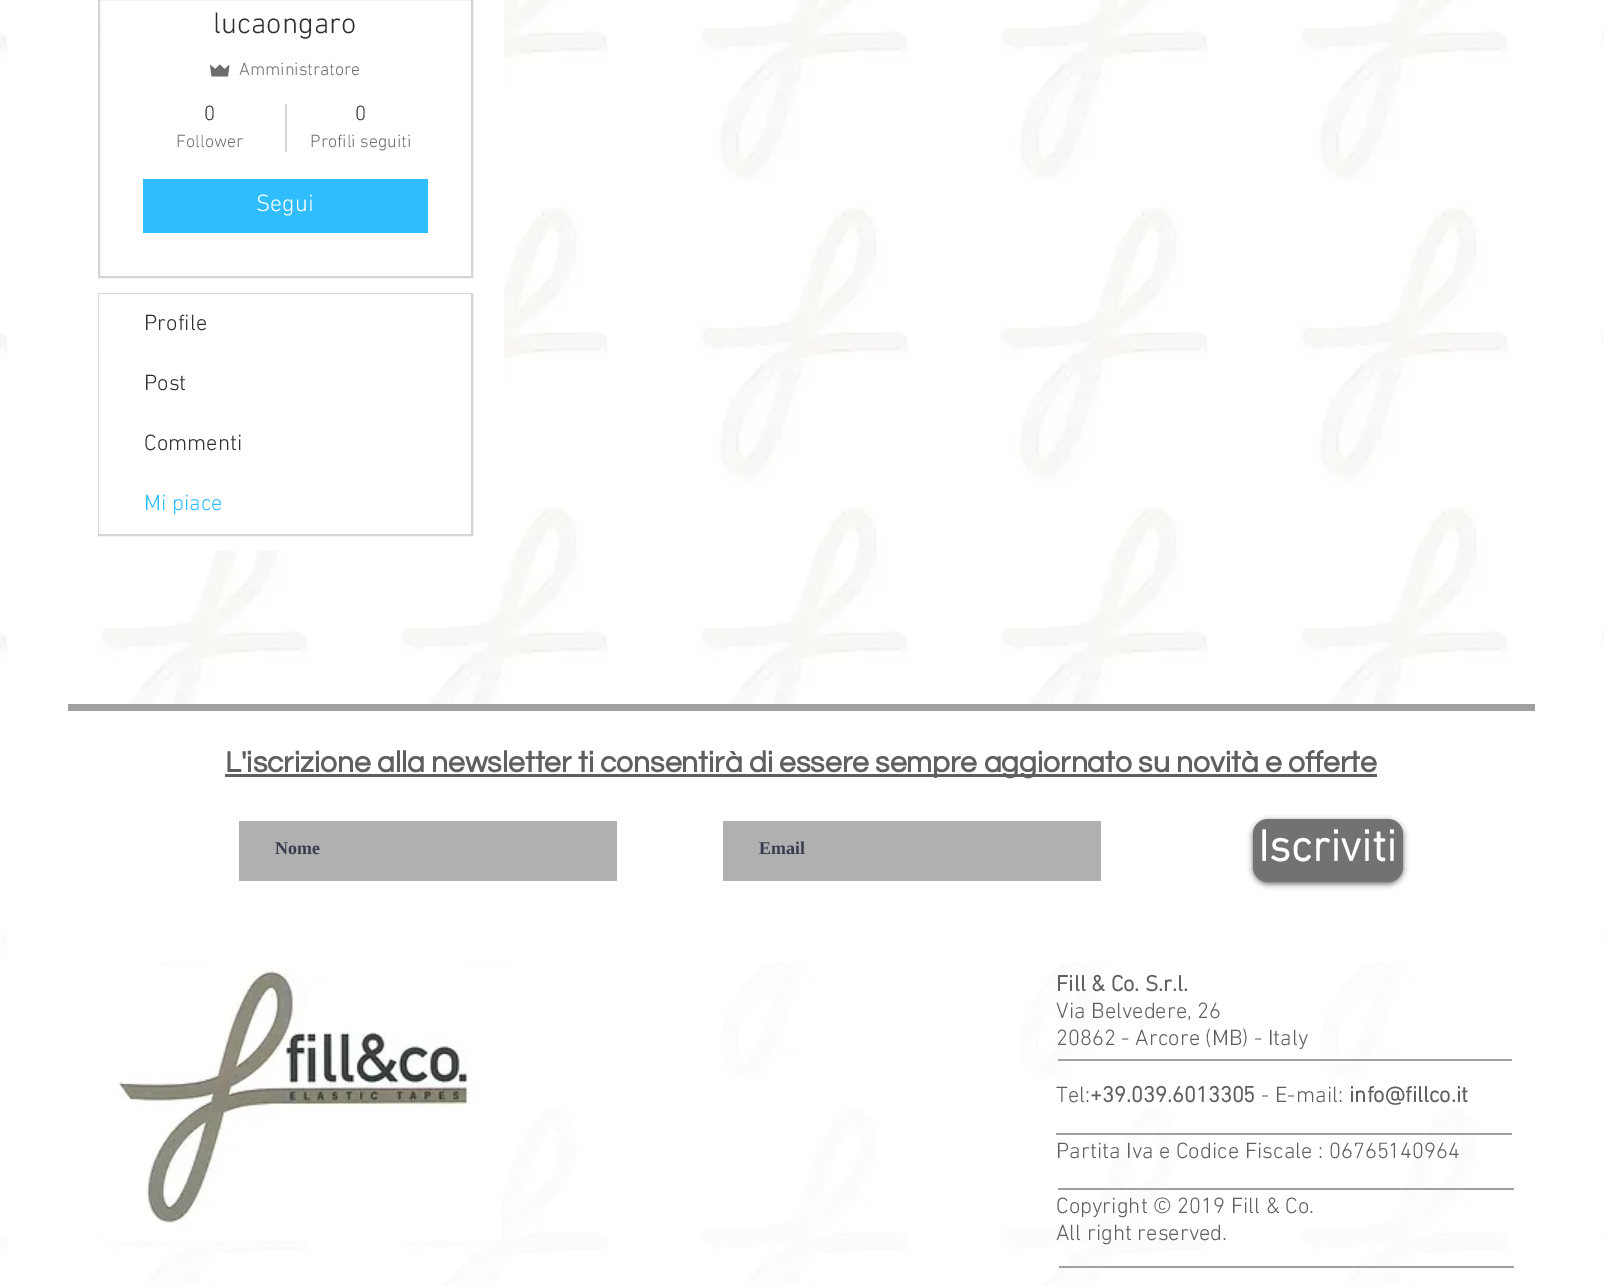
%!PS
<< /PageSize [1604 1286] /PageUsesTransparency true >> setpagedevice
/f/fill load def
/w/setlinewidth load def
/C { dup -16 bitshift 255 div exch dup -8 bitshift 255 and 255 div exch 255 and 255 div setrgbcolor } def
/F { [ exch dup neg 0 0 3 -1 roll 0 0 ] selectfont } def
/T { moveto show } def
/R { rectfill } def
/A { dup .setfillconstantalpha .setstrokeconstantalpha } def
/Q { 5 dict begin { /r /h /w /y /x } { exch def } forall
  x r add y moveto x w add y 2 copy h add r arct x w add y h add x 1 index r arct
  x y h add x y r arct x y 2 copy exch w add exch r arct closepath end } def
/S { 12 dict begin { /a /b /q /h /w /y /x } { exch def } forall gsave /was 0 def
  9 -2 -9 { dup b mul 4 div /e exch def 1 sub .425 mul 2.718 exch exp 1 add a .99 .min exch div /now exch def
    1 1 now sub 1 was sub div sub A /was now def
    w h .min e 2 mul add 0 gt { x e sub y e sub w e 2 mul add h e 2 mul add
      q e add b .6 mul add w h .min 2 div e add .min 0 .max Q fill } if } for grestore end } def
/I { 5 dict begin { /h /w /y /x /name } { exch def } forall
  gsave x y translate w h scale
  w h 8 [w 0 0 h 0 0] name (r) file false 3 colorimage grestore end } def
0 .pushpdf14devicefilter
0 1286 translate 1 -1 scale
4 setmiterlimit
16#FFFFFF C
0 0 1604 1286 R
(1.rgb) 0 0 1604 1286 I
100 0 404 551 R
16#D5D5D5 C
2 w
99 -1 373 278 rectstroke
/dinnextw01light-Light 30 F
16#2F2E2E C
(lucaongaro) 213 33 T
(2.rgb) 210 64 20 13 I
/dinnextw01light-Light 18 F
16#6D6D6D C
(Amministratore) 239 75 T
/dinnextw01light-Light 21 F
16#2F2E2E C
(0) 204 120 T
/dinnextw01light-Light 18 F
16#6D6D6D C
(Follower) 176 147 T
16#D5D5D5 C
285 104 2 48 R
/dinnextw01light-Light 21 F
16#2F2E2E C
(0) 355 120 T
/dinnextw01light-Light 18 F
16#6D6D6D C
(Profili seguiti) 310 147 T
16#30BDFF C
143 179 285 54 R
/dinnextw01light-Light 24 F
16#FFFFFF C
(Segui) 256 211 T
16#D5D5D5 C
99 294 373 241 rectstroke
16#FFFFFF C
99 294 372 60 R
/dinnextw01light-Light 22.5 F
16#2F2E2E C
(Profile) 144 330 T
16#FFFFFF C
99 354 1 180 R
16#2F2E2E C
(Post) 144 390 T
(Commenti) 144 450 T
16#30BDFF C
(Mi piace) 144 510 T
0.6 A
16#FFFFFF C
0 704 1604 582 R
1 A
16#A0A09F C
68 704 1467 7 R
16#FFFFFF C
101 711 1405 251 R
16#605E5E C
225 774 1152 3 R
/Questrial-Bold 30 F
(L'iscrizione alla newsletter ti consentirà di essere sempre aggiornato su novità e offerte) 225 772 T
16#B0B0B0 C
239 821 378 60 R
/LiberationSerif-Bold 18 F
16#373B4D C
(Nome) 275 854 T
16#B0B0B0 C
723 821 378 60 R
16#373B4D C
(Email) 759 854 T
16#000000 C
1253 821 150 63 15 3 .6 S
16#727272 C
1253 819 150 63 15 Q f
/dinnextw01light-Bold 45 F
16#FFFFFF C
(Iscriviti) 1258 861 T
(3.rgb) 103 965 399 276 I
/dinnextw01light-Bold 22.5 F
16#605E5E C
(Fill & Co. S.r.l.) 1056 991 T
/dinnextw01light-Light 22.5 F
(Via Belvedere, 26) 1056 1018 T
(20862 - Arcore \(MB\) - Italy) 1056 1045 T
16#A0A09F C
1058 1059 454 2 R
16#605E5E C
(Tel:) 1056 1102 T
/dinnextw01light-Bold 22.5 F
(+39.039.6013305) 1090 1102 T
/dinnextw01light-Light 22.5 F
(- E-mail:) 1261 1102 T
/dinnextw01light-Bold 22.5 F
(info@fillco.it) 1349 1102 T
/dinnextw01light-Light 22.5 F
(Partita Iva e Codice Fiscale : 06765140964) 1056 1158 T
(Copyright © 2019 Fill & Co.) 1056 1213 T
(All right reserved.) 1056 1240 T
16#A0A09F C
1056 1133 456 2 R
1058 1188 456 2 R
1059 1266 455 2 R
.poppdf14devicefilter showpage
